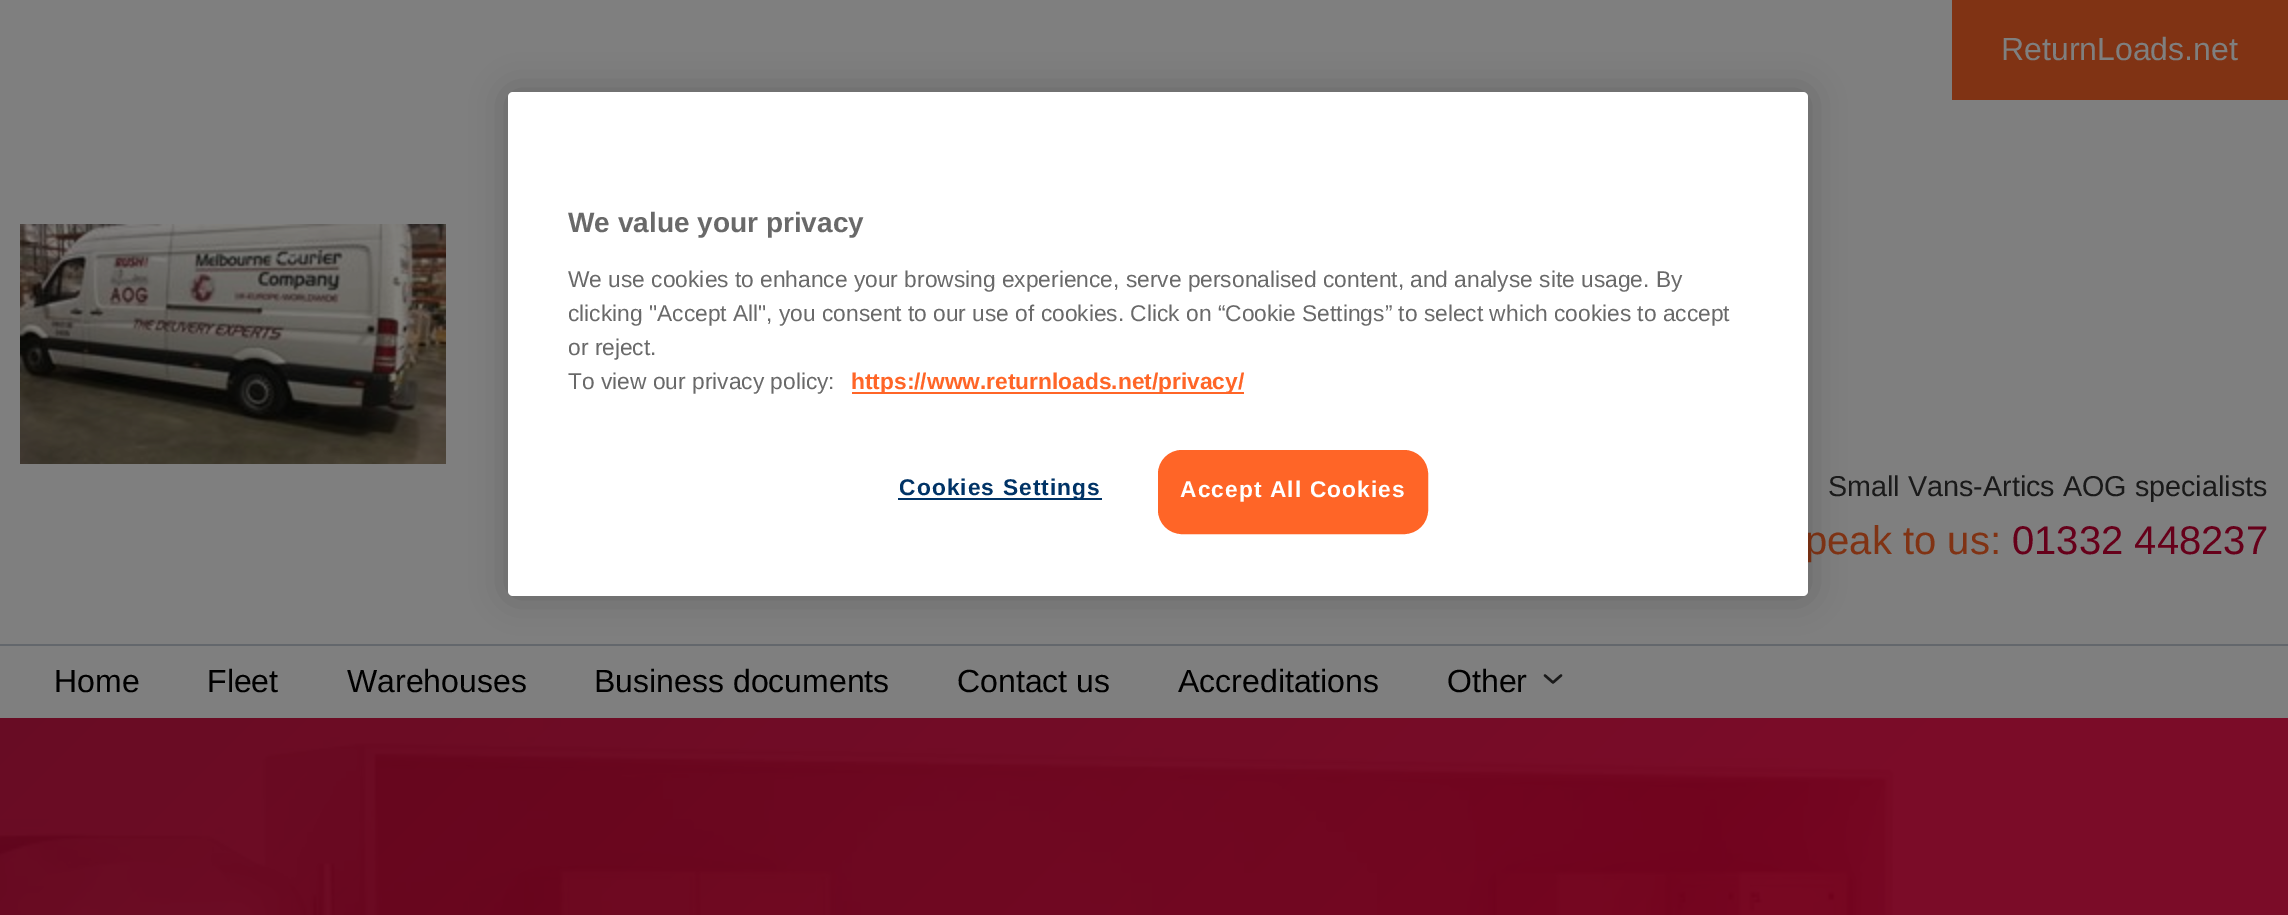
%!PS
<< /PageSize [2288 915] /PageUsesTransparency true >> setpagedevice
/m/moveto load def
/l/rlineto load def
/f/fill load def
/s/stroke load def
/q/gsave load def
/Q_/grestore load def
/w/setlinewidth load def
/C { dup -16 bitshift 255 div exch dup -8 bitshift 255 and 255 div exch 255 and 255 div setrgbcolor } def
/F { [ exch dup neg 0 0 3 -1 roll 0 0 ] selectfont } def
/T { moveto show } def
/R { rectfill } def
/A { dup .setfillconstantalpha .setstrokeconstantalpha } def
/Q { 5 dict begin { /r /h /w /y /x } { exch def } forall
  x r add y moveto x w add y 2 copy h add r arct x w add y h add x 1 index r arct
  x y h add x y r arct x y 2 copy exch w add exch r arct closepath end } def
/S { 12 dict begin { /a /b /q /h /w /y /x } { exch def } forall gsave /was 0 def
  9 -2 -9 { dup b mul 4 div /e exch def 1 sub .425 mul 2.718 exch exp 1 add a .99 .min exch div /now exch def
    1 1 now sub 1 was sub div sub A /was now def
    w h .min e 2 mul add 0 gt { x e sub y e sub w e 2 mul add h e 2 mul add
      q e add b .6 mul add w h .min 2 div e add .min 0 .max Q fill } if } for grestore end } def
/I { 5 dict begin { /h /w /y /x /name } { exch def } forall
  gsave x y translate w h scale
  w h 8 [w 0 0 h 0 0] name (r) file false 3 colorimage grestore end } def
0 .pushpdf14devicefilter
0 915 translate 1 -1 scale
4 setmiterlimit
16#7F7F7F C
0 0 2288 915 R
16#803314 C
1952 0 336 100 R
/LiberationSans-Regular 32 F
16#7F7F7F C
(ReturnLoads.net) 2001 60 T
(1.rgb) 20 224 426 240 I
/LiberationSans-Regular 28.75 F
16#1A1A1A C
(Small Vans-Artics AOG specialists) 1828 496 T
/LiberationSans-Regular 40 F
16#803314 C
(peak to us:) 1805 554 T
16#66001A C
(01332 448237) 2012 554 T
16#63676C C
0 644 2288 2 R
/LiberationSans-Regular 32 F
16#000000 C
(Home) 54 692 T
(Fleet) 207 692 T
(Warehouses) 347 692 T
(Business documents) 594 692 T
(Contact us) 957 692 T
(Accreditations) 1178 692 T
(Other) 1447 692 T
16#1A1A1A C
2.4 w
1 setlinecap
1 setlinejoin
1545 675.5 m 8 7 l 8 -7 l s
(2.rgb) 0 718 2288 197 I
16#000000 C
508 92 1300 504 5 18 .2 S
16#FFFFFF C
508 92 1300 504 5 Q f
/LiberationSans-Bold 28 F
16#696969 C
(We value your privacy) 568 232 T
/LiberationSans-Regular 22.75 F
(We use cookies to enhance your browsing experience, serve personalised content, and analyse site usage. By) 568 287 T
(clicking "Accept All", you consent to our use of cookies. Click on “Cookie Settings” to select which cookies to accept) 568 321 T
(or reject.) 568 355 T
(To view our privacy policy:) 568 389 T
16#FF6527 C
852 392 392 2 R
/LiberationSans-Bold 22.75 F
(https://www.returnloads.net/privacy/) 851 389 T
16#003366 C
898 498 204 2 R
899 495 m 1.1 0 (Cookies Settings) ashow
16#FF6527 C
1159 451 268 82 23 Q q f Q_
2 w
0 setlinecap
0 setlinejoin
s
16#FFFFFF C
1180 497 m 1.1 0 (Accept All Cookies) ashow
.poppdf14devicefilter showpage
